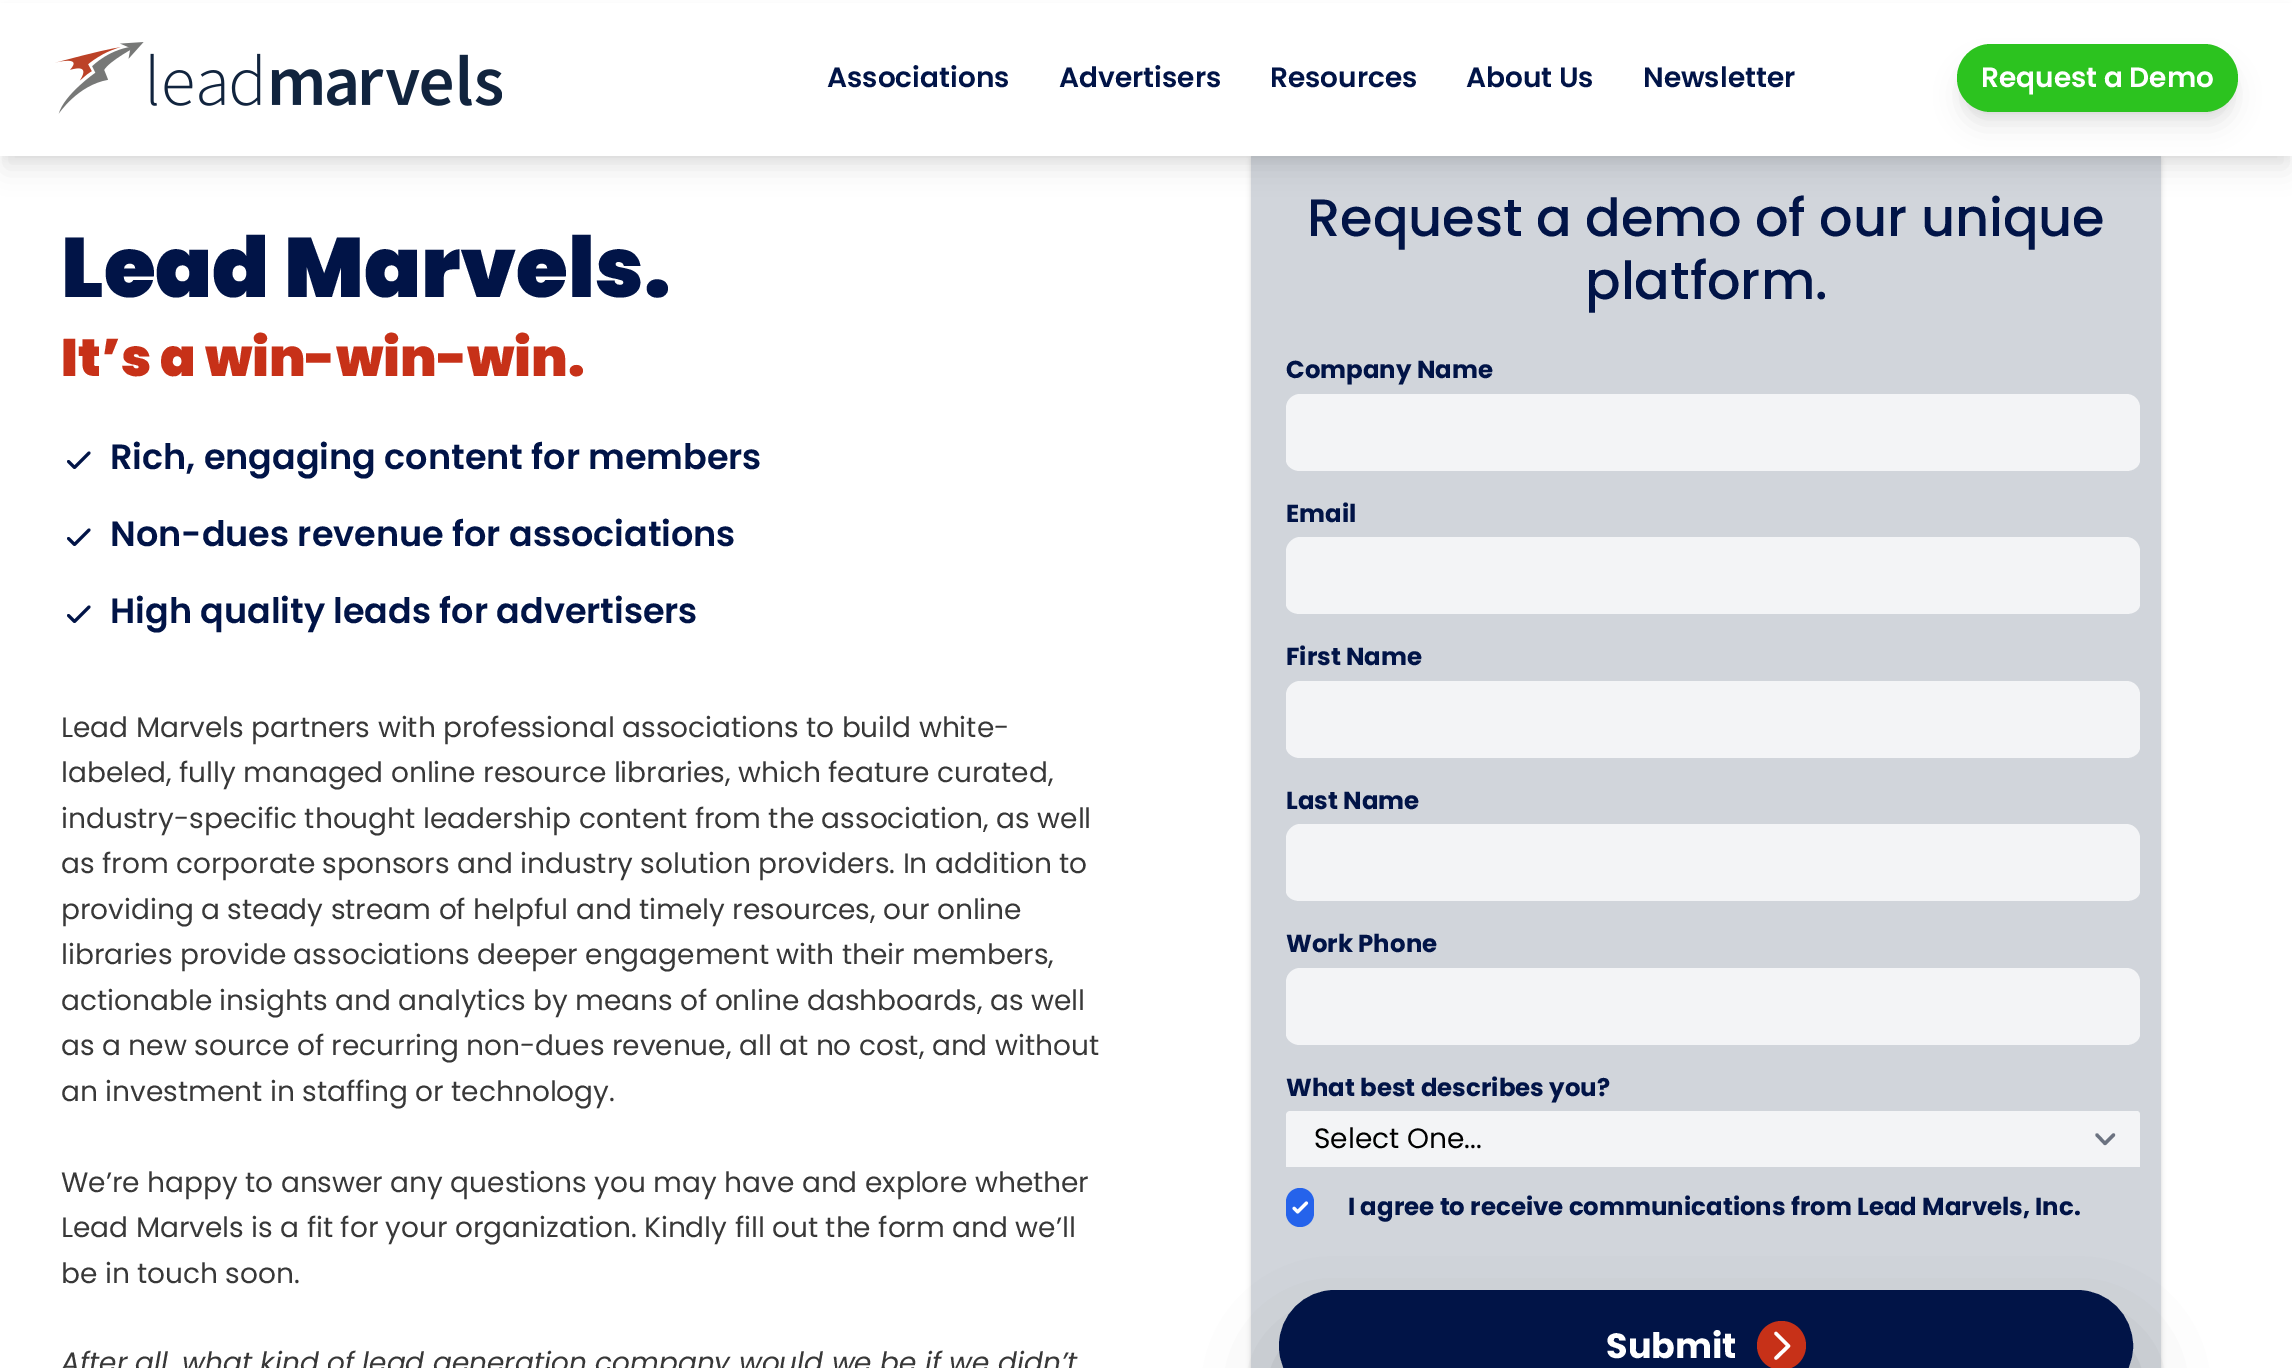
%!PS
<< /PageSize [2292 1368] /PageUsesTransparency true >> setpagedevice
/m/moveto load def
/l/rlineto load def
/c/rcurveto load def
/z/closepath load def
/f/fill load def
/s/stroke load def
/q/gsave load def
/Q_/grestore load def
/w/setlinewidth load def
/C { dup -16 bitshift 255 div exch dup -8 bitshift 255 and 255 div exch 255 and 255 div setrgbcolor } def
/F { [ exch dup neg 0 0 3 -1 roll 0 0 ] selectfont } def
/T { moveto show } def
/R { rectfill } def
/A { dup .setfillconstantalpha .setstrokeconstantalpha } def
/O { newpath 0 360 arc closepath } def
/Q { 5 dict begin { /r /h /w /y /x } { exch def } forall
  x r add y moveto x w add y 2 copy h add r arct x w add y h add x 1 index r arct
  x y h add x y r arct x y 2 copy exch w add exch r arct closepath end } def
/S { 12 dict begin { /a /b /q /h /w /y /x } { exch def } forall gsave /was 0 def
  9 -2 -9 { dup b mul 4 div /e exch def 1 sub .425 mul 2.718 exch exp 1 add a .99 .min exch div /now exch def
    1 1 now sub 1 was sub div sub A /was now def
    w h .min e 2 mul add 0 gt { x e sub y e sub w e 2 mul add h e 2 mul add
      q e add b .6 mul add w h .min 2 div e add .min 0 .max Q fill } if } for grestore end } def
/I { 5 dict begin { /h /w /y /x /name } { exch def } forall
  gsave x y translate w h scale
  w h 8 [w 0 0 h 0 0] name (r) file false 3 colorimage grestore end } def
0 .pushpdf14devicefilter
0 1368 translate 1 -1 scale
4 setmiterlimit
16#FFFFFF C
0 0 2292 1368 R
16#000000 C
1251 147 910 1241 14 2 .06 S
1251 147 910 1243 14 2.5 .1 S
16#D1D5DB C
1251 145 910 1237 14 Q f
16#000000 C
4 11 2285 148 0 5 .05 S
5 23 2282 145 0 13 .1 S
16#FFFFFF C
0 3 2292 153 R
(1.rgb) 55 42 447 72 I
/Poppins-SemiBold 28 F
16#011447 C
(Associations) 827 87 T
(Advertisers) 1059 87 T
(Resources) 1270 87 T
(About Us) 1466 87 T
(Newsletter) 1643 87 T
16#000000 C
1960 54 275 62 31 5 .05 S
1962 67 271 57 28.5 13 .1 S
16#2CC31F C
1957 44 281 68 34 Q f
16#FFFFFF C
(Request a Demo) 1981 87 T
/Poppins-Regular 28 F
16#383838 C
(Lead Marvels partners with professional associations to build white-) 61 737 T
(labeled, fully managed online resource libraries, which feature curated,) 61 782 T
(industry-specific thought leadership content from the association, as well) 61 828 T
(as from corporate sponsors and industry solution providers. In addition to) 61 873 T
(providing a steady stream of helpful and timely resources, our online) 61 919 T
(libraries provide associations deeper engagement with their members,) 61 964 T
(actionable insights and analytics by means of online dashboards, as well) 61 1010 T
(as a new source of recurring non-dues revenue, all at no cost, and without) 61 1055 T
(an investment in staffing or technology.) 61 1101 T
(We’re happy to answer any questions you may have and explore whether) 61 1192 T
(Lead Marvels is a fit for your organization. Kindly fill out the form and we’ll) 61 1237 T
(be in touch soon.) 61 1283 T
/Poppins-Italic 28 F
(After all, what kind of lead generation company would we be if we didn’t) 61 1372 T
/Poppins-Medium 52.5 F
16#011447 C
(Request a demo of our unique) 1307 236 T
(platform.) 1585 299 T
/Poppins-Bold 24.5 F
(Company Name) 1286 378 T
16#F3F4F6 C
1300 394 m 826 0 l 8 0 14 6 14 14 c 0 52 l 0 6 -6 11 -14 11 c -826 0 l -7 0 -14 -5 -14 -11 c 0 -52 l 0 -8 7 -14 14 -14 c z f
16#011447 C
(Email) 1286 522 T
16#F3F4F6 C
1300 537 m 826 0 l 8 0 14 7 14 14 c 0 53 l 0 6 -6 10 -14 10 c -826 0 l -7 0 -14 -4 -14 -10 c 0 -53 l 0 -7 7 -14 14 -14 c z f
16#011447 C
(First Name) 1286 665 T
16#F3F4F6 C
1300 681 m 826 0 l 8 0 14 6 14 14 c 0 52 l 0 6 -6 11 -14 11 c -826 0 l -7 0 -14 -5 -14 -11 c 0 -52 l 0 -8 7 -14 14 -14 c z f
16#011447 C
(Last Name) 1286 809 T
16#F3F4F6 C
1300 824 m 826 0 l 8 0 14 7 14 14 c 0 53 l 0 6 -6 10 -14 10 c -826 0 l -7 0 -14 -4 -14 -10 c 0 -53 l 0 -7 7 -14 14 -14 c z f
16#011447 C
(Work Phone) 1286 952 T
16#F3F4F6 C
1300 968 m 826 0 l 8 0 14 6 14 14 c 0 52 l 0 6 -6 11 -14 11 c -826 0 l -7 0 -14 -5 -14 -11 c 0 -52 l 0 -8 7 -14 14 -14 c z f
16#011447 C
(What best describes you?) 1286 1096 T
16#F3F4F6 C
1290 1111 m 847 0 l 2 0 3 2 3 4 c 0 52 l -854 0 l 0 -52 l 0 -2 2 -4 4 -4 c z f
16#6B7280 C
3.2 w
1 setlinecap
1 setlinejoin
2097 1135 m 8 8.5 l 8.5 -8.5 l s
/Poppins-Regular 28 F
16#000000 C
(Select One...) 1314 1148 T
16#2563EB C
1286 1188 28 39 14 Q f
(2.rgb) 1292 1201 17 13 I
/Poppins-Bold 24.5 F
16#011447 C
(I agree to receive communications from Lead Marvels, Inc.) 1348 1215 T
16#000000 C
1300 1355 812 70 35 44 .25 S
16#011447 C
1281 1292 850 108 54 Q q f Q_
4 w
0 setlinecap
0 setlinejoin
s
/Poppins-Bold 35 F
16#FFFFFF C
(Submit) 1606 1358 T
16#C73118 C
1781.5 1345.5 24.5 O f
16#FFFFFF C
3.5 w
1 setlinecap
1 setlinejoin
1776 1333.5 m 12.5 12.5 l -12.5 12 l s
/Poppins-Black 84 F
16#011447 C
(Lead Marvels.) 61 297 T
/Poppins-Black 52.5 F
16#C73118 C
(It’s a win-win-win.) 61 376 T
16#011447 C
2.9 w
68.5 461.5 m 6 6 l 14.5 -14.5 l s
/Poppins-SemiBold 35 F
(Rich, engaging content for members) 110 469 T
68.5 538.5 m 6 6 l 14.5 -14.5 l s
(Non-dues revenue for associations) 110 546 T
68.5 615.5 m 6 6 l 14.5 -14.5 l s
(High quality leads for advertisers) 110 623 T
.poppdf14devicefilter showpage
